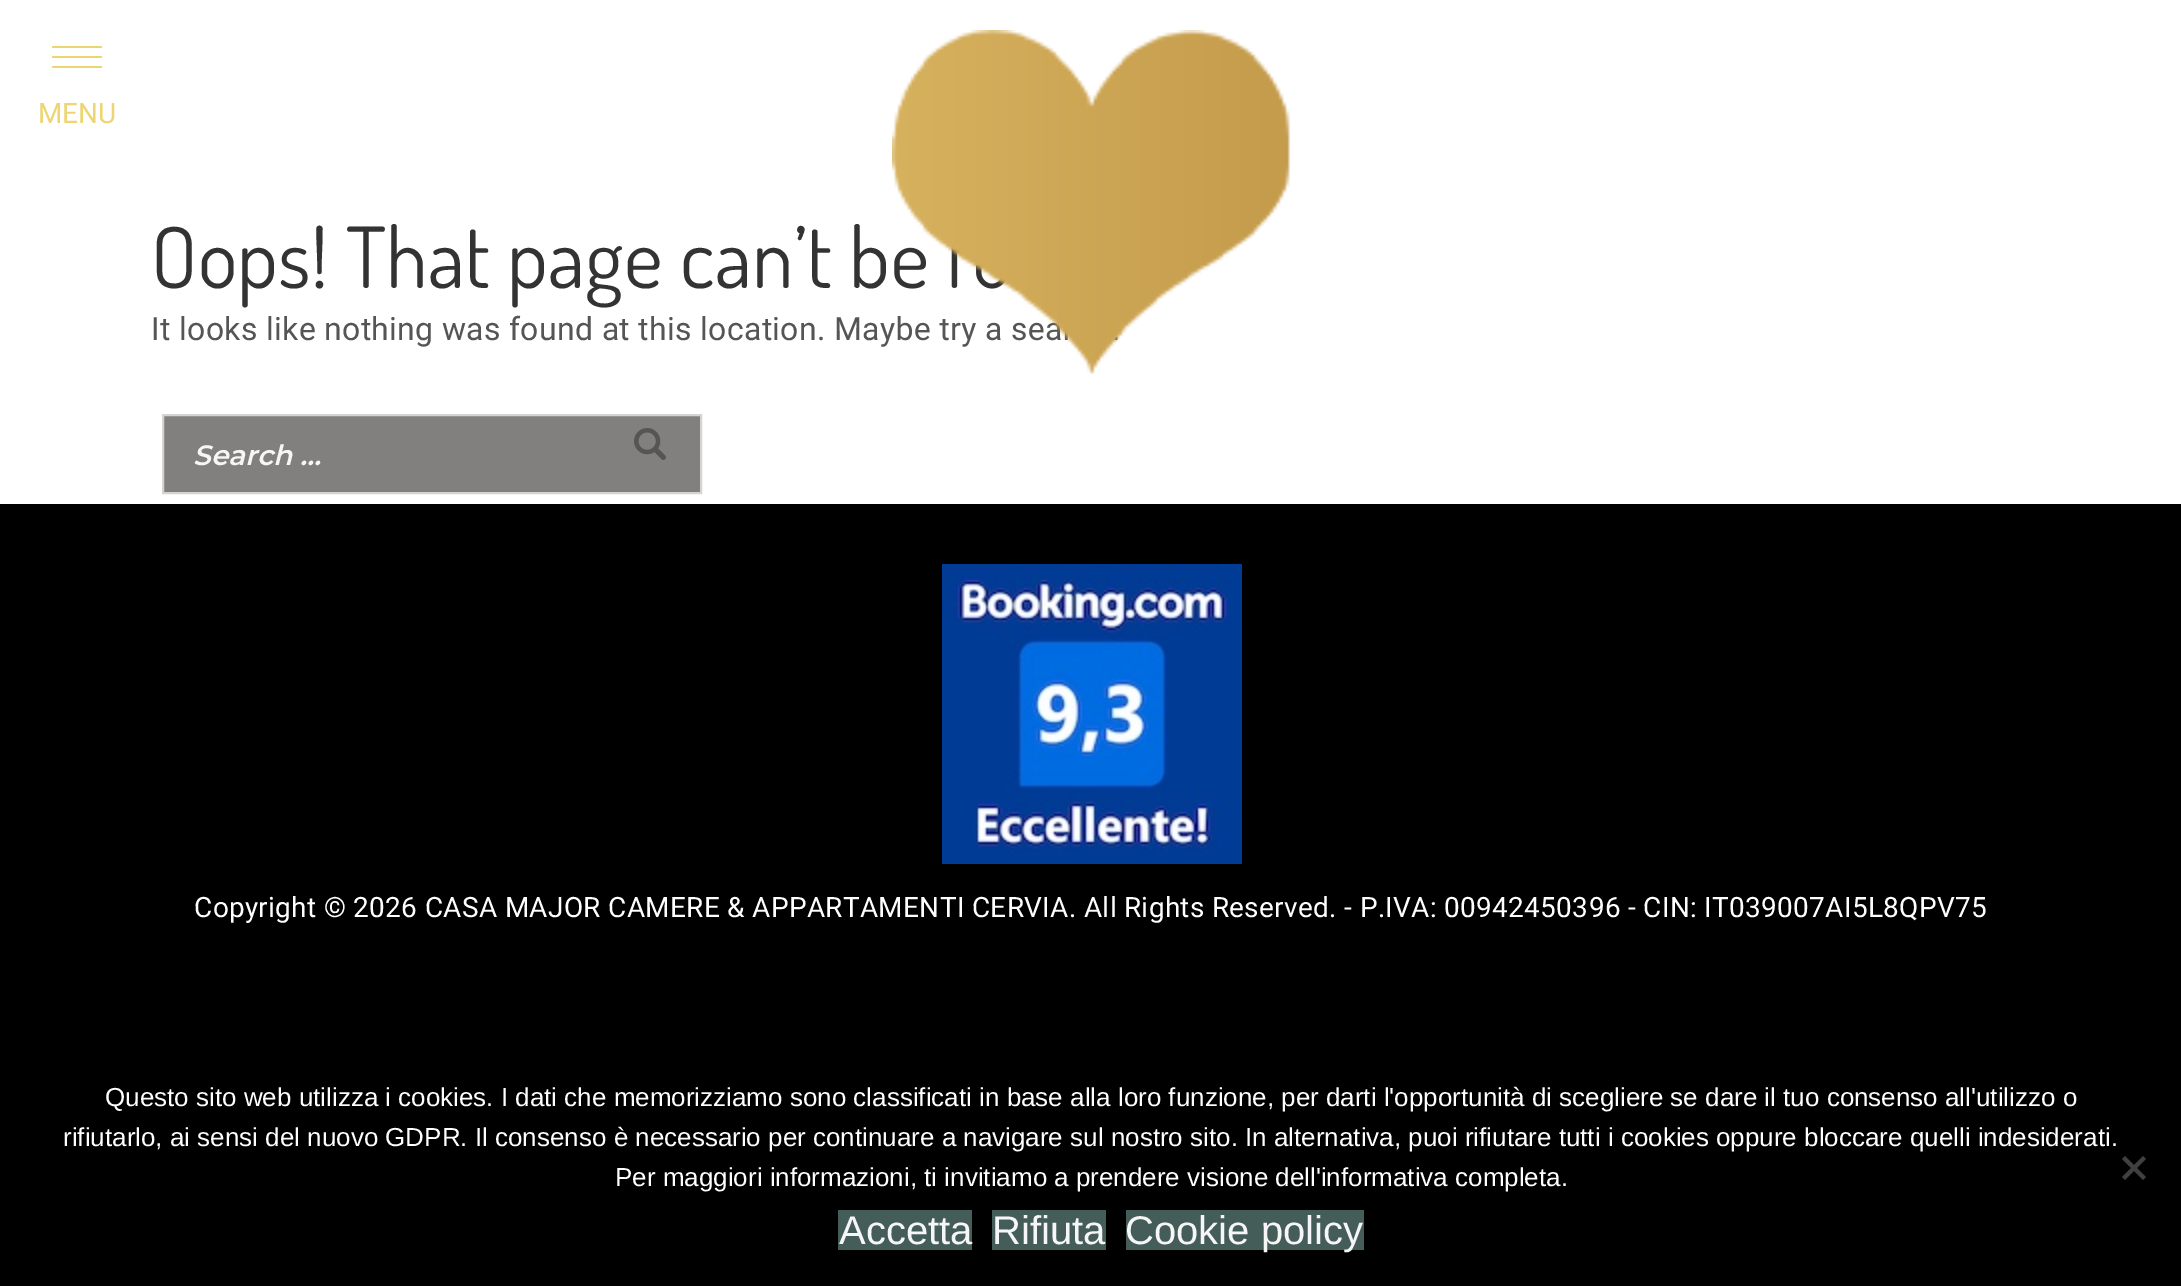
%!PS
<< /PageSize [2181 1286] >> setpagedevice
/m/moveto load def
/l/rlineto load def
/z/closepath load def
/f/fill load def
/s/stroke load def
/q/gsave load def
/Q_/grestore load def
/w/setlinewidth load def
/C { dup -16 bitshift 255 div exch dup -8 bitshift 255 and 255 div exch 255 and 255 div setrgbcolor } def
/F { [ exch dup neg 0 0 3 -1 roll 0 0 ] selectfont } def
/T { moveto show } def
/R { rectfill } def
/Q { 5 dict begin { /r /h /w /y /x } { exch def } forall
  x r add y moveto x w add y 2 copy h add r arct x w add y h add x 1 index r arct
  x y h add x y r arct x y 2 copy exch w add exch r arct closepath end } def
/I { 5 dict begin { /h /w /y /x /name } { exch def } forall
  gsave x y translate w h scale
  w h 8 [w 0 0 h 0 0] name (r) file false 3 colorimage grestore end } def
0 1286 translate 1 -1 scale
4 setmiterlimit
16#FFFFFF C
0 0 2181 1286 R
16#EDD574 C
52 56 50 2 1 Q f
52 46 50 2 1 Q f
52 66 50 2 1 Q f
/Roboto-Regular 28 F
(MENU) 38 123 T
/Dosis-Regular 84 F
16#333333 C
151 288 m .32 0 (Oops! That page can’t be) ashow
/Roboto-Regular 32 F
16#555555 C
151 340 m .32 0 (It looks like nothing was found at this location. Maybe try a sea) ashow
(1.rgb) 892 30 398 344 I
16#827F7F C
163 415 m 538 0 l 0 78 l -538 0 l z q f Q_
16#D4D4D4 C
2 w
s
/Montserrat-SemiBoldItalic 28 F
16#F6F6F6 C
(Search …) 193 465 T
(2.rgb) 634 428 32 32 I
16#000000 C
0 504 2181 782 R
(3.rgb) 942 564 300 300 I
/Roboto-Regular 28 F
16#FFFFFF C
194 917 m .32 0 (Copyright © 2026 CASA MAJOR CAMERE & APPARTAMENTI CERVIA. All Rights Reserved. - P.IVA: 00942450396 - CIN: IT039007AI5L8QPV75) ashow
/LiberationSans-Regular 26 F
(Questo sito web utilizza i cookies. I dati che memorizziamo sono classificati in base alla loro funzione, per darti l'opportunità di scegliere se dare il tuo consenso all'utilizzo o) 105 1106 T
(rifiutarlo, ai sensi del nuovo GDPR. Il consenso è necessario per continuare a navigare sul nostro sito. In alternativa, puoi rifiutare tutti i cookies oppure bloccare quelli indesiderati.) 63 1146 T
(Per maggiori informazioni, ti invitiamo a prendere visione dell'informativa completa.) 615 1186 T
16#404040 C
2143 1156 m 3 3 l -21 21 l -3 -3 l z f
2122 1159 m 3 -3 l 21 21 l -3 3 l z f
16#455D58 C
838 1210 134 40 R
/LiberationSans-Regular 40 F
16#F6F6F6 C
(Accetta) 839 1244 T
16#455D58 C
992 1210 114 40 R
16#F6F6F6 C
(Rifiuta) 992 1244 T
16#455D58 C
1126 1210 238 40 R
16#F6F6F6 C
(Cookie policy) 1125 1244 T
showpage
